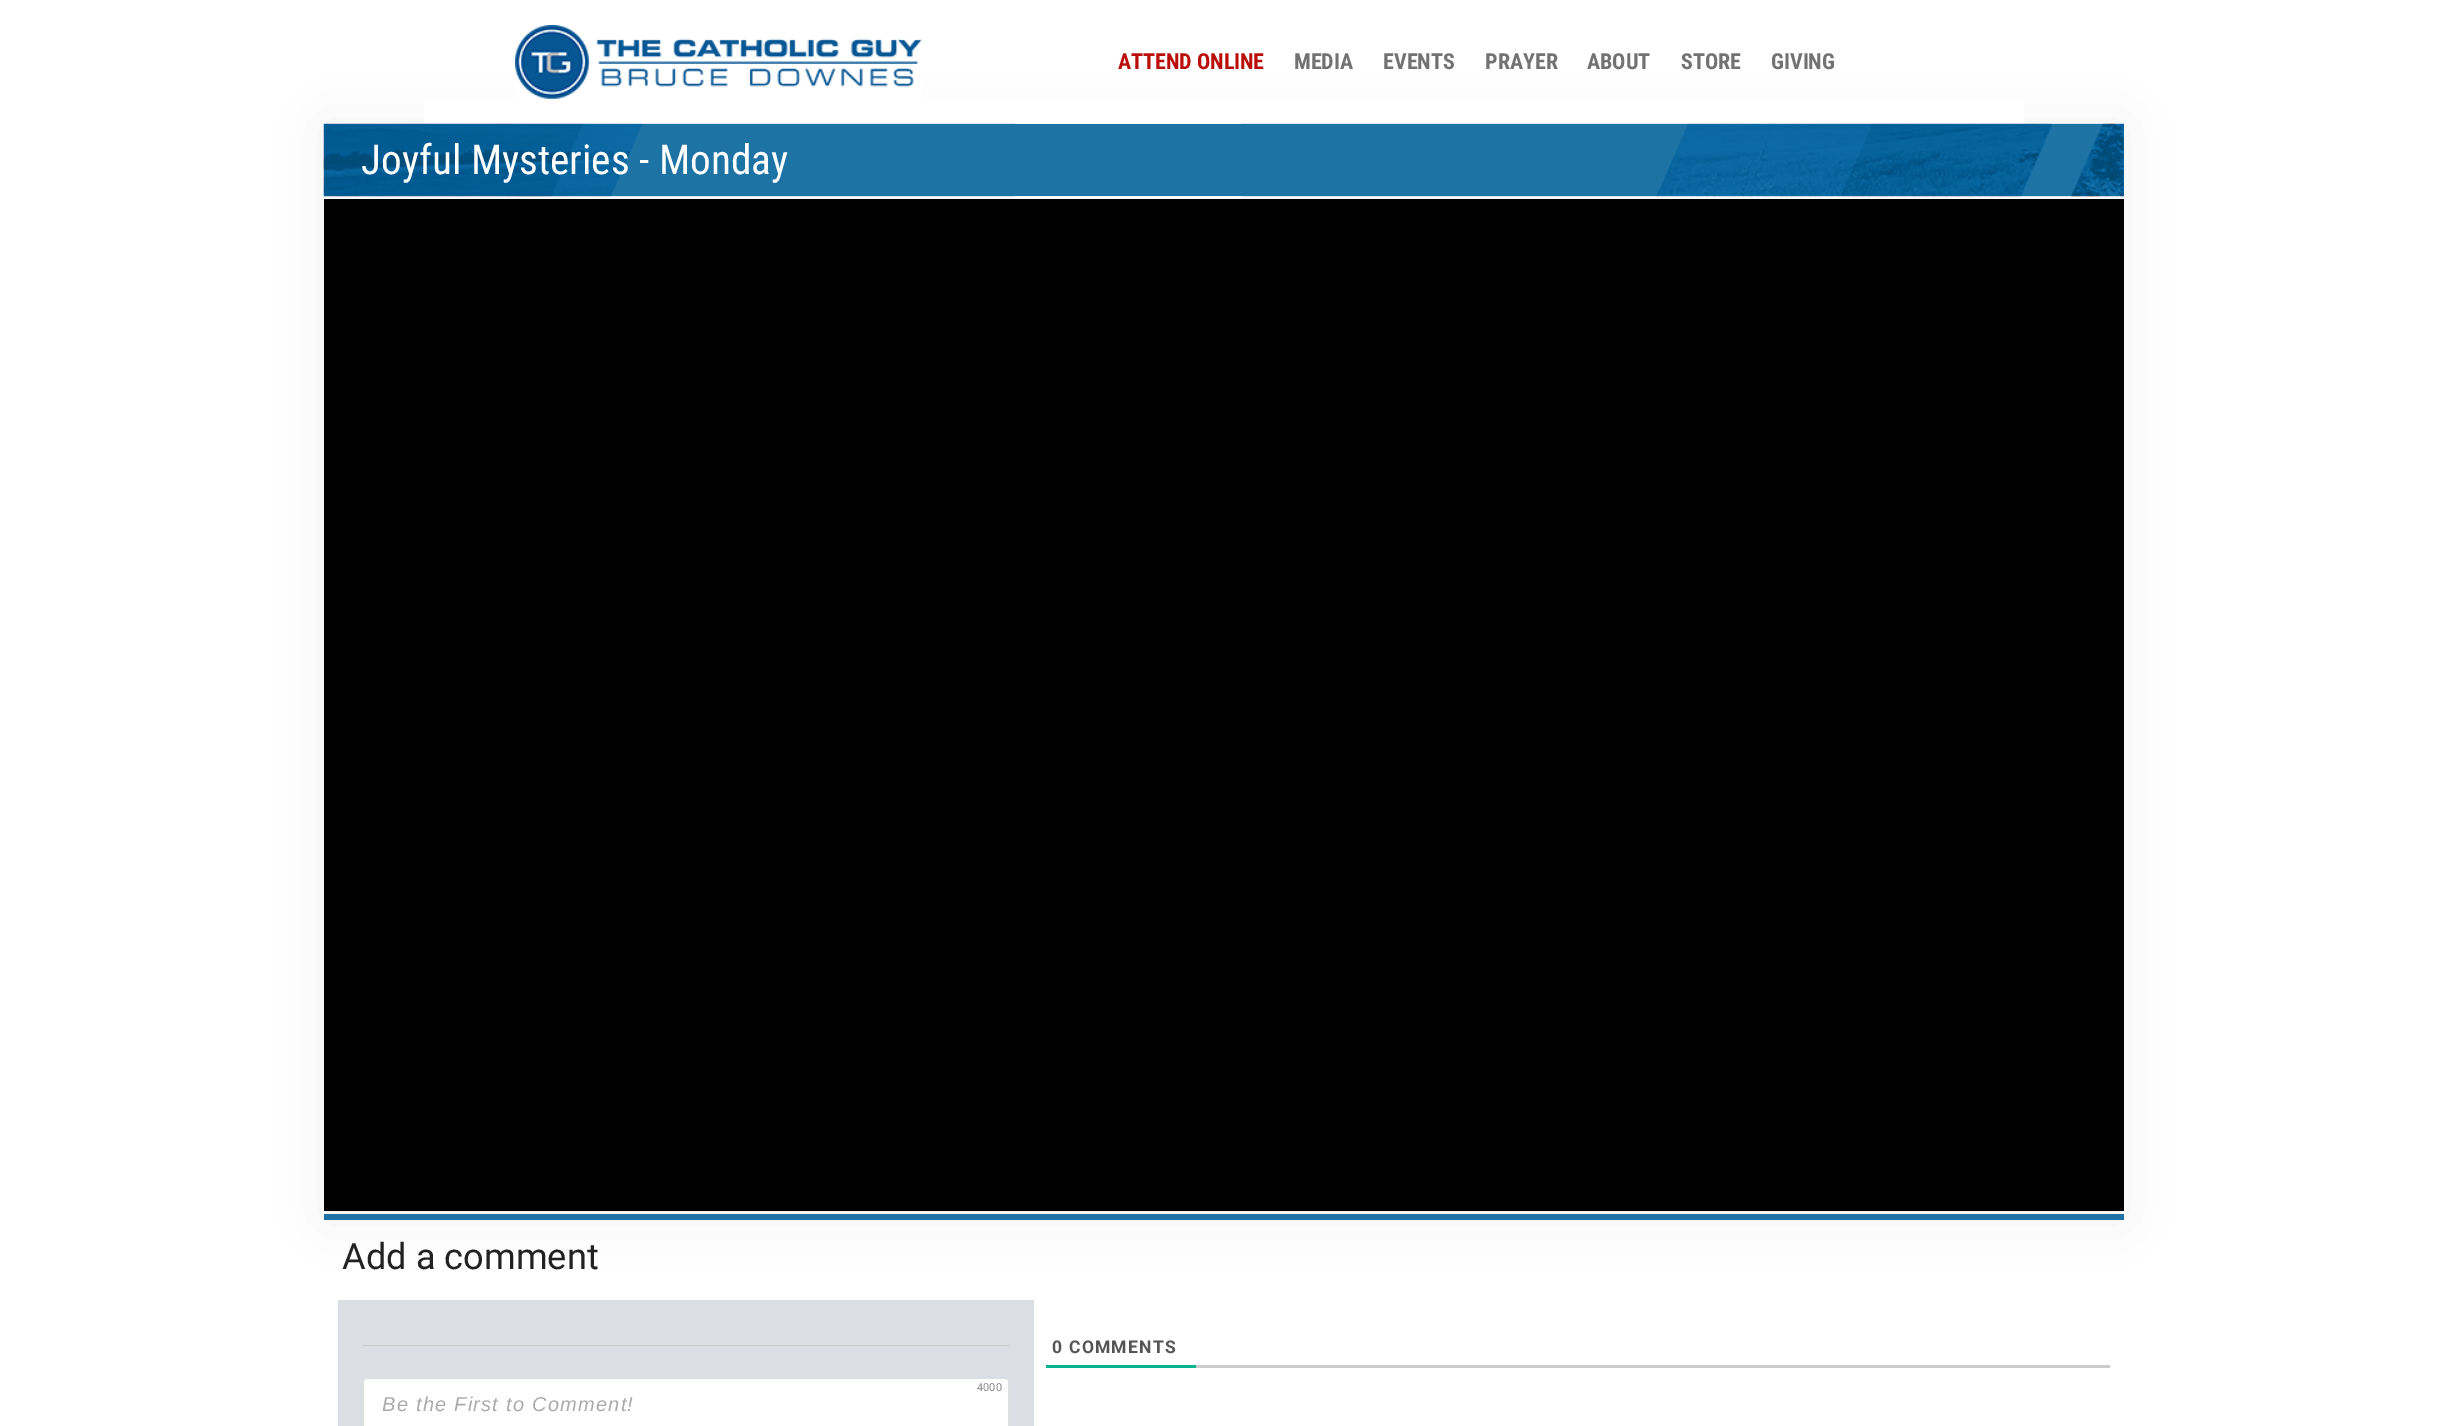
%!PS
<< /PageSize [2446 1426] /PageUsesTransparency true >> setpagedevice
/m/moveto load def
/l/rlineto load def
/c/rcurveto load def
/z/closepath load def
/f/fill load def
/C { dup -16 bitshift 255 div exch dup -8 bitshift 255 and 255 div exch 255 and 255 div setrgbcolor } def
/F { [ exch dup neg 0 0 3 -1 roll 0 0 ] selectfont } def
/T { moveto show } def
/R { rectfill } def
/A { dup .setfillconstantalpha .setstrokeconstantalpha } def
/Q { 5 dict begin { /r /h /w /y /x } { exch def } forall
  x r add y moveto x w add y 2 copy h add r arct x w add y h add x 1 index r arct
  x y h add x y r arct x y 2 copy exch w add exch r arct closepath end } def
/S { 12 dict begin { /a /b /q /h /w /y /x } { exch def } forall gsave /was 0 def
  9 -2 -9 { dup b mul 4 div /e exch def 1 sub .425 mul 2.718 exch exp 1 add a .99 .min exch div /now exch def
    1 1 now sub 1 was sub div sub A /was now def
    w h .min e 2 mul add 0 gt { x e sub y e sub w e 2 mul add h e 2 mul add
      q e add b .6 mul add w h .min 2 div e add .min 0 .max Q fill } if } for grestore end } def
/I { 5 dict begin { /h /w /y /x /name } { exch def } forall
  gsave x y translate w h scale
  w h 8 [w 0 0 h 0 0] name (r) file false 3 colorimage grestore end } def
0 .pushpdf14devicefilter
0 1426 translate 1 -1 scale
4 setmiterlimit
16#FFFFFF C
0 0 2446 1426 R
16#000000 C
324 124 1800 1096 0 28 .05 S
16#FFFFFF C
424 100 1600 24 R
(1.rgb) 515 25 407 74 I
/RobotoCondensed-Bold 22 F
16#B90E0A C
(ATTEND ONLINE) 1118 69 T
16#727272 C
(MEDIA) 1294 69 T
(EVENTS) 1383 69 T
(PRAYER) 1485 69 T
(ABOUT) 1587 69 T
(STORE) 1681 69 T
(GIVING) 1771 69 T
16#F9F9F9 C
337 196 1774 1011 R
16#1E73A6 C
324 1214 1800 6 R
16#73A9CB C
1015 124 1109 72 R
(2.rgb) 323 123 692 74 I
(3.rgb) 1241 123 883 74 I
0.74 A
16#006098 C
324 124 1800 72 R
/RobotoCondensed-Regular 41.25 F
1 A
16#FFFFFF C
(Joyful Mysteries - Monday) 361 174 T
16#000000 C
324 199 1800 1012 R
/Roboto-Regular 36.25 F
16#222222 C
(Add a comment) 342 1269 T
16#CCCCCC C
1196 1365 914 3 R
16#00B38F C
1046 1365 150 3 R
/Roboto-Bold 17.5 F
16#555555 C
1052 1353 m 1.25 0 (0 COMMENTS) ashow
16#DBDFE4 C
338 1300 696 126 R
16#CCCCCC C
363 1345 646 1 R
16#FFFFFF C
367 1378 m 638 0 l 2 0 4 2 4 4 c 0 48 l -646 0 l 0 -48 l 0 -2 2 -4 4 -4 c z f
16#DDDDDD C
366 1378 m 639 0 l 2 0 4 1 4 3 c 0 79 l -647 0 l 0 -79 l 0 -2 2 -3 4 -3 c z 366 1379 m 639 0 l 1 0 3 1 3 2 c 0 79 l -644 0 l 0 -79 l 0 -1 1 -2 2 -2 c z eofill
/Roboto-Regular 11 F
16#888888 C
(4000) 977 1391 T
/LiberationSans-Italic 20 F
16#AAAAAA C
382 1411 m 1.25 0 (Be the First to Comment!) ashow
.poppdf14devicefilter showpage
